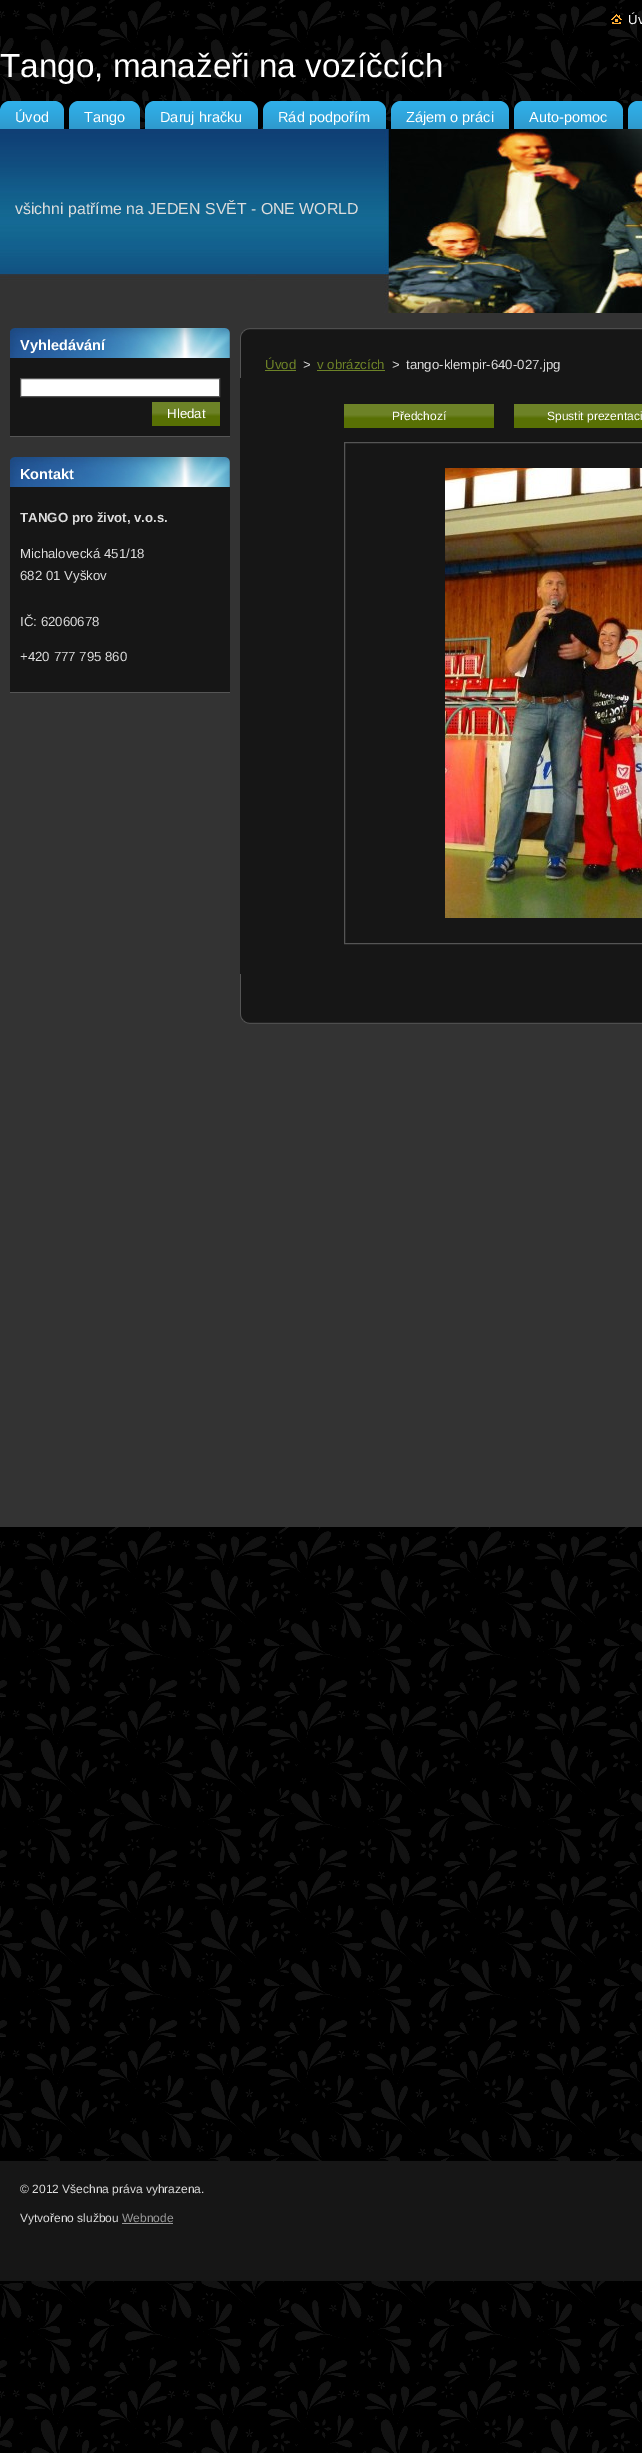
%!PS
<< /PageSize [642 2453] >> setpagedevice
/m/moveto load def
/l/rlineto load def
/z/closepath load def
/f/fill load def
/s/stroke load def
/q/gsave load def
/Q_/grestore load def
/C { dup -16 bitshift 255 div exch dup -8 bitshift 255 and 255 div exch 255 and 255 div setrgbcolor } def
/F { [ exch dup neg 0 0 3 -1 roll 0 0 ] selectfont } def
/T { moveto show } def
/R { rectfill } def
/I { 5 dict begin { /h /w /y /x /name } { exch def } forall
  gsave x y translate w h scale
  w h 8 [w 0 0 h 0 0] name (r) file false 3 colorimage grestore end } def
0 2453 translate 1 -1 scale
4 setmiterlimit
16#FFFFFF C
0 0 642 2453 R
(1.rgb) 0 0 642 2453 I
16#333333 C
0 313 642 1214 R
(2.rgb) 611 14 11 10 I
/LiberationSans-Regular 13.25 F
16#FFFFFF C
(Úv) 628 24 T
/LiberationSans-Regular 33.25 F
(Tango, manažeři na vozíčcích) 0 77 T
(3.rgb) 0 101 64 28 I
(4.rgb) 0 101 8 8 I
(5.rgb) 56 101 8 8 I
/LiberationSans-Regular 14.5 F
(Úvod) 15 122 T
(6.rgb) 69 101 71 28 I
(4.rgb) 69 101 8 8 I
(5.rgb) 132 101 8 8 I
(Tango) 84 122 T
(7.rgb) 145 101 113 28 I
(4.rgb) 145 101 8 8 I
(5.rgb) 250 101 8 8 I
(Daruj hračku) 160 122 T
(8.rgb) 263 101 123 28 I
(4.rgb) 263 101 8 8 I
(5.rgb) 378 101 8 8 I
(Rád podpořím) 278 122 T
(9.rgb) 391 101 118 28 I
(4.rgb) 391 101 8 8 I
(5.rgb) 501 101 8 8 I
(Zájem o práci) 406 122 T
(10.rgb) 514 101 109 28 I
(4.rgb) 514 101 8 8 I
(5.rgb) 615 101 8 8 I
(Auto-pomoc) 529 122 T
(11.rgb) 628 101 14 28 I
(4.rgb) 628 101 8 8 I
(12.rgb) 0 129 642 184 I
/LiberationSans-Regular 15.9 F
16#DDDDDD C
(všichni patříme na JEDEN SVĚT - ONE WORLD) 15 214 T
16#161616 C
10 358 220 78 R
16#555555 C
10 436 220 1 R
(13.rgb) 10 328 220 30 I
/LiberationSans-Bold 14.5 F
16#FFFFFF C
(Vyhledávání) 20 350 T
20.5 378.5 m 199 0 l 0 18 l -199 0 l z q f Q_
16#555555 C
s
(14.rgb) 152 402 68 24 I
/LiberationSans-Regular 13.25 F
16#FFFFFF C
(Hledat) 167 418 T
16#161616 C
10 487 220 205 R
16#555555 C
10 692 220 1 R
(13.rgb) 10 457 220 30 I
/LiberationSans-Bold 14.5 F
16#FFFFFF C
(Kontakt) 20 479 T
/LiberationSans-Bold 13.25 F
16#DDDDDD C
(TANGO pro život, v.o.s.) 20 522 T
/LiberationSans-Regular 13.25 F
(Michalovecká 451/18) 20 558 T
(682 01 Vyškov) 20 580 T
(IČ: 62060678) 20 626 T
(+420 777 795 860) 20 661 T
(15.rgb) 240 328 402 50 I
(16.rgb) 240 974 402 50 I
16#161616 C
240 378 402 596 R
16#6D8227 C
(Úvod) 265 369 T
265 370 31 1 R
16#DDDDDD C
(>) 303 369 T
16#6D8227 C
(v obrázcích) 317 369 T
317 370 68 1 R
16#DDDDDD C
(>) 392 369 T
(tango-klempir-640-027.jpg) 406 369 T
(17.rgb) 344 404 150 24 I
/LiberationSans-Regular 12 F
16#FFFFFF C
(Předchozí) 392 420 T
(18.rgb) 514 404 128 24 I
(Spustit prezentaci) 547 420 T
16#555555 C
344.5 442.5 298 501 rectstroke
(19.rgb) 445 468 197 450 I
16#161616 C
0 2161 642 120 R
16#DDDDDD C
(© 2012 Všechna práva vyhrazena.) 20 2193 T
(Vytvořeno službou) 20 2222 T
16#999999 C
(Webnode) 122 2222 T
122 2223 51 1 R
showpage
